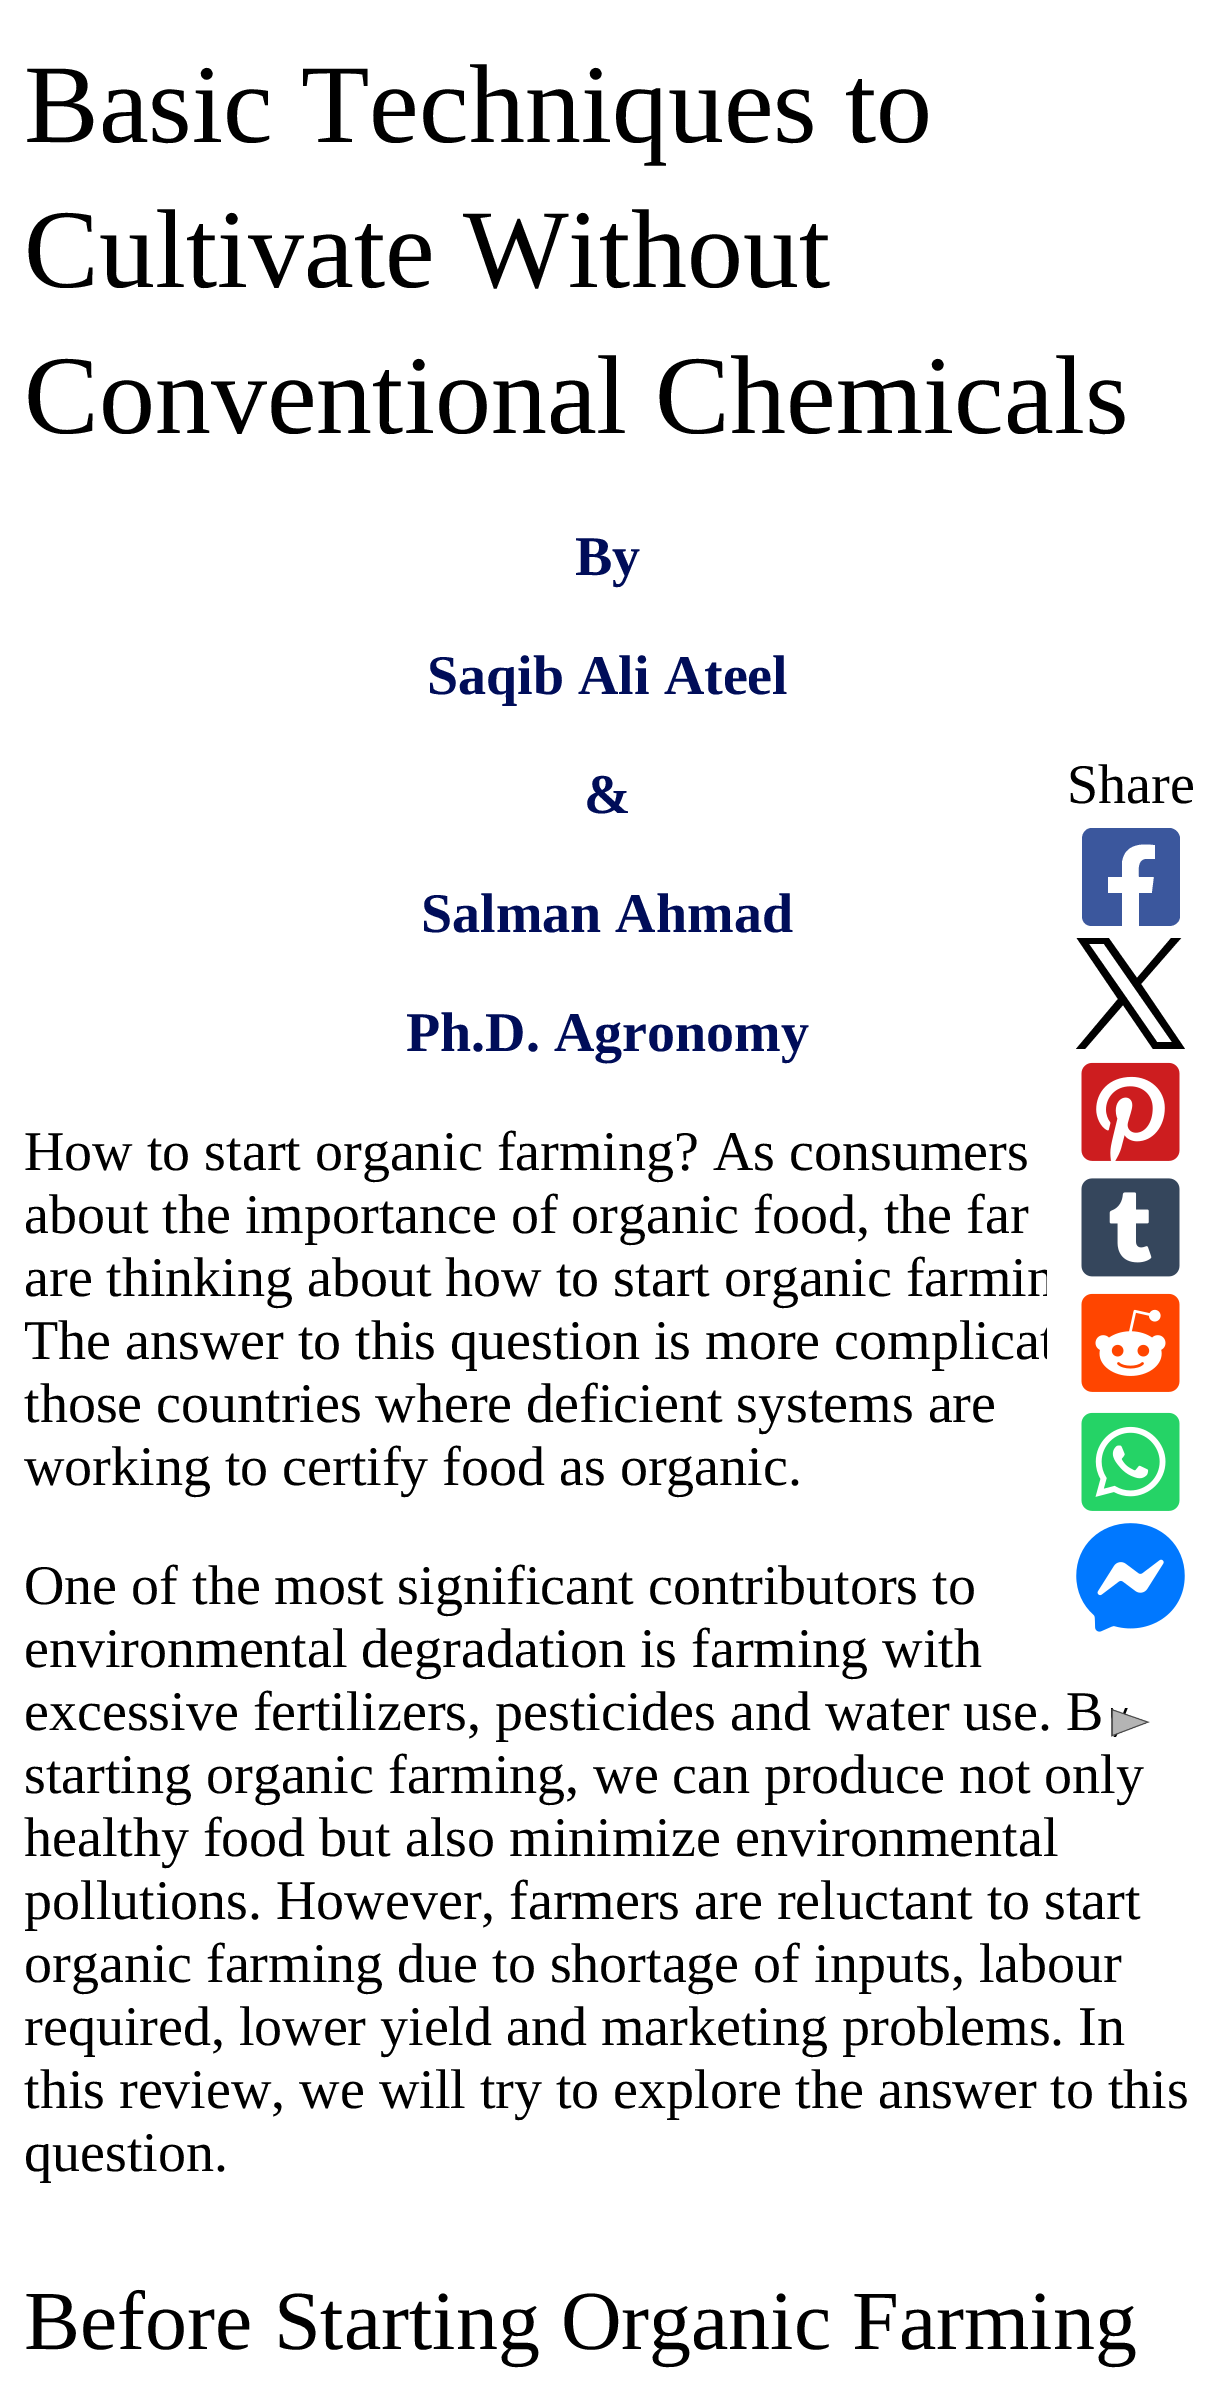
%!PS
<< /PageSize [1214 2381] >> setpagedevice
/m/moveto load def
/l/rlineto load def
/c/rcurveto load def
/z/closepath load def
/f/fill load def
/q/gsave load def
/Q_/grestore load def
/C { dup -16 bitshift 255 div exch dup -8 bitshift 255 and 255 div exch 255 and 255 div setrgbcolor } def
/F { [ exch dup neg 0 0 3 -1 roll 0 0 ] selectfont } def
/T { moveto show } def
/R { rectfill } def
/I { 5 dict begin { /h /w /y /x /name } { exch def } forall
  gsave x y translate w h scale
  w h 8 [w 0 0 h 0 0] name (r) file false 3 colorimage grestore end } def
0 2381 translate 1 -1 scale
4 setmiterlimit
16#FFFFFF C
0 0 1214 2381 R
/LiberationSerif-Regular 112 F
16#000000 C
(Basic Techniques to) 24 142 T
(Cultivate Without) 24 287 T
(Conventional Chemicals) 24 433 T
/LiberationSerif-Bold 56 F
16#000D59 C
(By) 575 575 T
(Saqib Ali Ateel) 427 694 T
(&) 584 813 T
/LiberationSerif-Regular 56 F
16#000000 C
(are thinking about how to start organic farmin) 24 1296 T
(The answer to this question is more complicat) 24 1359 T
16#FFFFFF C
1065 735 m 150 0 l 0 917 l -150 0 l -10 0 -18 -8 -18 -18 c 0 -881 l 0 -10 8 -18 18 -18 c z f
16#000000 C
(Share) 1067 803 T
16#3B579D C
1169 828 m -77 0 l -6 0 -10 5 -10 11 c 0 77 l 0 6 4 10 10 10 c 30 0 l 0 -33 l -14 0 l 0 -16 l 14 0 l 0 -16 l 3 -17 19 -18 33 -16 c 0 14 l -9 0 l -9 1 -7 12 -7 18 c 15 0 l -2 16 l -13 0 l 0 33 l 30 0 l 6 0 11 -4 11 -10 c 0 -77 l 0 -6 -5 -11 -11 -11 c z f
q
1075 938 112 112 rectclip
16#000000 C
1141 984 m 41 -47 l -10 0 l -35 41 l -29 -41 l -32 0 l 42 62 l -42 50 l 9 0 l 38 -44 l 30 44 l 32 0 l z 1128 1000 m -39 -56 l 15 0 l 68 98 l -15 0 l z f
Q_
(1.rgb) 1081 1062 99 99 I
(2.rgb) 1081 1178 99 99 I
(3.rgb) 1081 1293 99 99 I
(4.rgb) 1081 1412 99 99 I
(5.rgb) 1076 1523 109 109 I
(6.rgb) 1111 1708 39 29 I
/LiberationSerif-Bold 56 F
16#000D59 C
(Salman Ahmad) 421 932 T
(Ph.D. Agronomy) 406 1051 T
/LiberationSerif-Regular 56 F
16#000000 C
(How to start organic farming? As consumers) 24 1170 T
(about the importance of organic food, the far) 24 1233 T
(those countries where deficient systems are) 24 1422 T
(working to certify food as organic.) 24 1485 T
(One of the most significant contributors to) 24 1604 T
(environmental degradation is farming with) 24 1667 T
(excessive fertilizers, pesticides and water use. B) 24 1730 T
(starting organic farming, we can produce not only) 24 1793 T
(healthy food but also minimize environmental) 24 1856 T
(pollutions. However, farmers are reluctant to start) 24 1919 T
(organic farming due to shortage of inputs, labour) 24 1982 T
(required, lower yield and marketing problems. In) 24 2045 T
(this review, we will try to explore the answer to this) 24 2108 T
(question.) 24 2171 T
/LiberationSerif-Regular 84 F
(Before Starting Organic Farming) 24 2349 T
showpage
